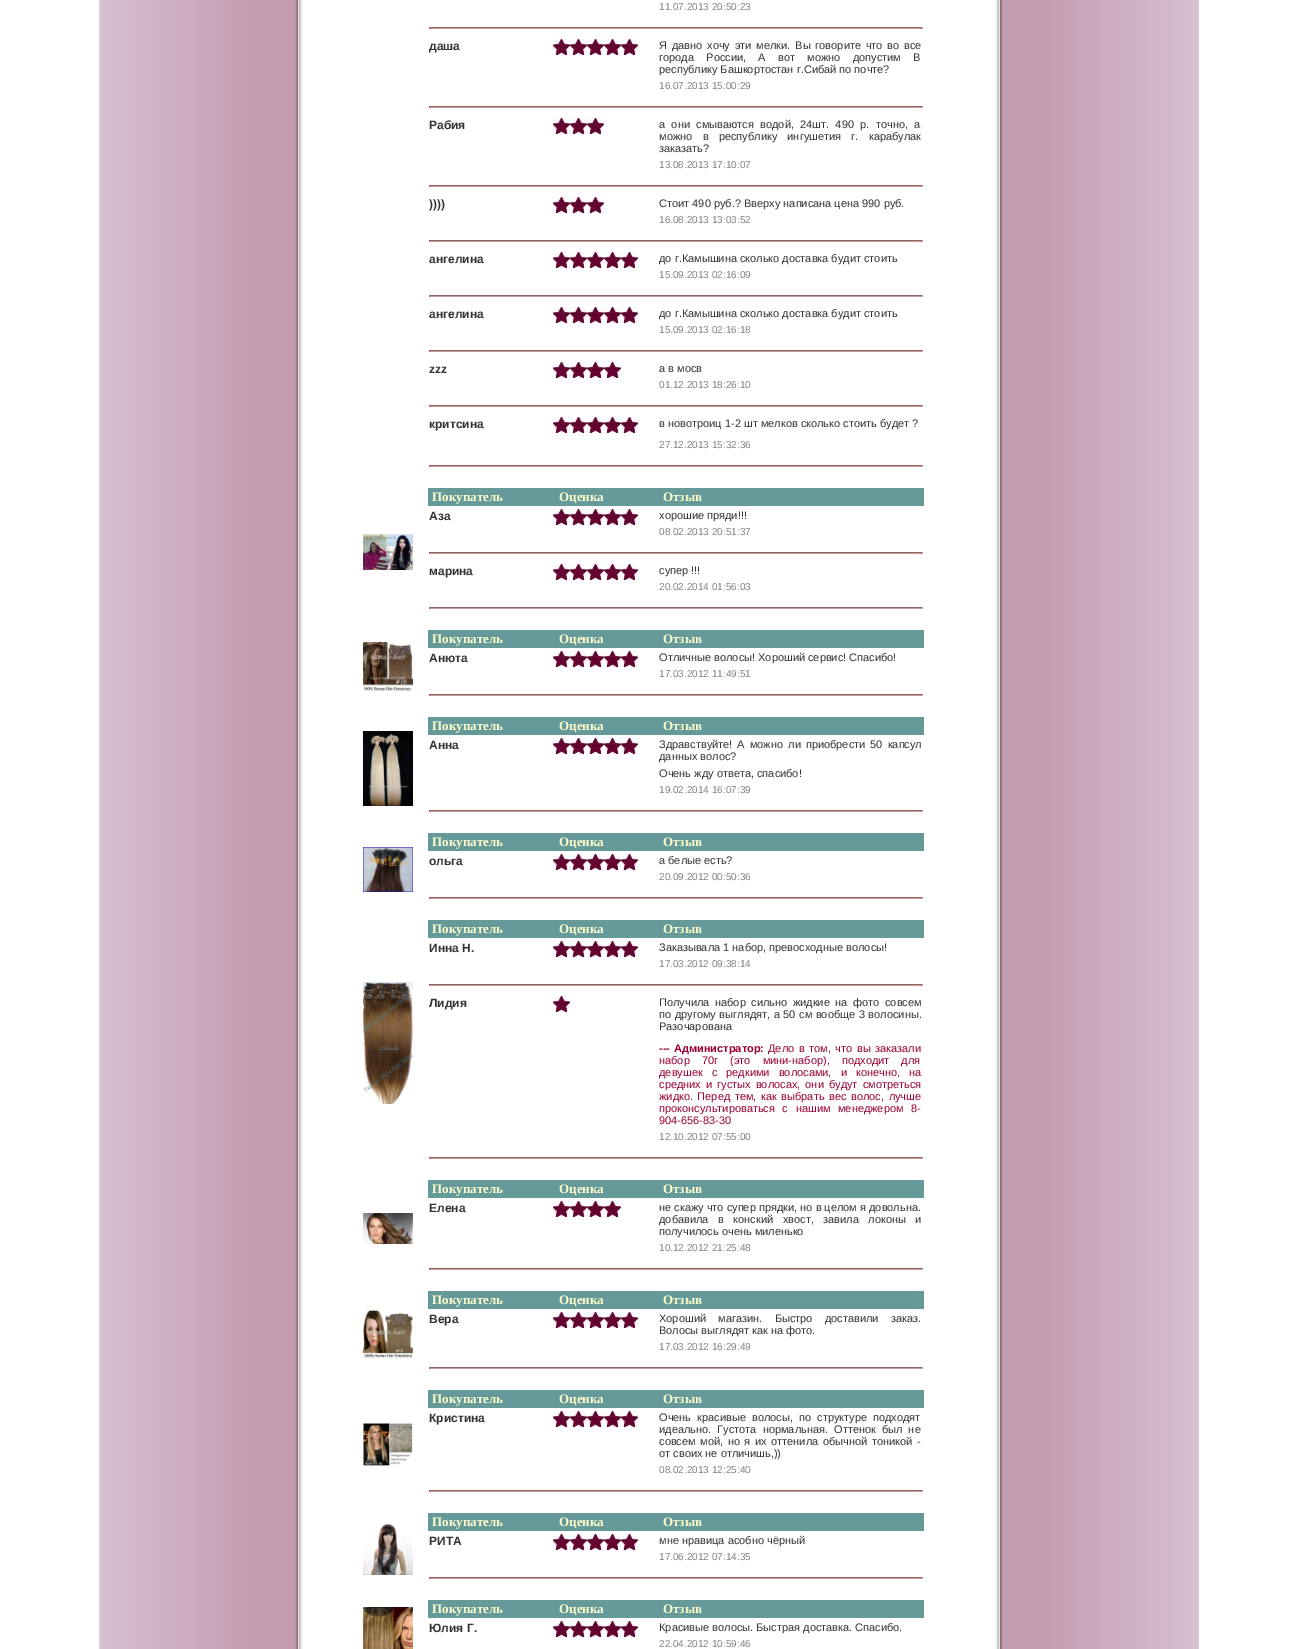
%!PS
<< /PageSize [1297 1649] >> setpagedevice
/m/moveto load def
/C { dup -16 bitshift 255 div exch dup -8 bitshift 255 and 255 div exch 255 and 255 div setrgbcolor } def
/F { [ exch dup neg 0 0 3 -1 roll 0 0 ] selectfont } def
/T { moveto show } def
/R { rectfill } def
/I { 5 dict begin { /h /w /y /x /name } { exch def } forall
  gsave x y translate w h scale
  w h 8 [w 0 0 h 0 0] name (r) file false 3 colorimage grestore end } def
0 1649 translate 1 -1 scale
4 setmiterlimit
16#FFFFFF C
0 0 1297 1649 R
(1.rgb) 99 0 200 1649 I
(2.rgb) 299 0 4 1649 I
/LiberationSans-Regular 10 F
16#867E8C C
(11.07.2013 20:50:23) 659 10 T
16#886666 C
429 27 494 1 R
16#CC9999 C
922 27 1 2 R
429 28 494 1 R
16#886666 C
429 27 1 2 R
/LiberationSans-Bold 12 F
16#333333 C
(даша) 429 50 T
(3.rgb) 553 39 17 16 I
(3.rgb) 570 39 17 16 I
(3.rgb) 587 39 17 16 I
(3.rgb) 604 39 17 16 I
(3.rgb) 621 39 17 16 I
/LiberationSans-Regular 11 F
659 49 m 1.75 0 32 (Я давно хочу эти мелки. Вы говорите что во все) widthshow
659 61 m 9.25 0 32 (города России, А вот можно допустим В) widthshow
(республику Башкортостан г.Сибай по почте?) 659 73 T
/LiberationSans-Regular 10 F
16#867E8C C
(16.07.2013 15:00:29) 659 89 T
16#886666 C
429 106 494 1 R
16#CC9999 C
922 106 1 2 R
429 107 494 1 R
16#886666 C
429 106 1 2 R
/LiberationSans-Bold 12 F
16#333333 C
(Рабия) 429 129 T
(3.rgb) 553 118 17 16 I
(3.rgb) 570 118 17 16 I
(3.rgb) 587 118 17 16 I
/LiberationSans-Regular 11 F
659 128 m 3.25 0 32 (а они смываются водой, 24шт. 490 р. точно, а) widthshow
659 140 m 7.25 0 32 (можно в республику ингушетия г. карабулак) widthshow
(заказать?) 659 152 T
/LiberationSans-Regular 10 F
16#867E8C C
(13.08.2013 17:10:07) 659 168 T
16#886666 C
429 185 494 1 R
16#CC9999 C
922 185 1 2 R
429 186 494 1 R
16#886666 C
429 185 1 2 R
/LiberationSans-Bold 12 F
16#333333 C
(\)\)\)\)) 429 208 T
(3.rgb) 553 197 17 16 I
(3.rgb) 570 197 17 16 I
(3.rgb) 587 197 17 16 I
/LiberationSans-Regular 11 F
(Стоит 490 руб.? Вверху написана цена 990 руб.) 659 207 T
/LiberationSans-Regular 10 F
16#867E8C C
(16.08.2013 13:03:52) 659 223 T
16#886666 C
429 240 494 1 R
16#CC9999 C
922 240 1 2 R
429 241 494 1 R
16#886666 C
429 240 1 2 R
/LiberationSans-Bold 12 F
16#333333 C
(ангелина) 429 263 T
(3.rgb) 553 252 17 16 I
(3.rgb) 570 252 17 16 I
(3.rgb) 587 252 17 16 I
(3.rgb) 604 252 17 16 I
(3.rgb) 621 252 17 16 I
/LiberationSans-Regular 11 F
(до г.Камышина сколько доставка будит стоить) 659 262 T
/LiberationSans-Regular 10 F
16#867E8C C
(15.09.2013 02:16:09) 659 278 T
16#886666 C
429 295 494 1 R
16#CC9999 C
922 295 1 2 R
429 296 494 1 R
16#886666 C
429 295 1 2 R
/LiberationSans-Bold 12 F
16#333333 C
(ангелина) 429 318 T
(3.rgb) 553 307 17 16 I
(3.rgb) 570 307 17 16 I
(3.rgb) 587 307 17 16 I
(3.rgb) 604 307 17 16 I
(3.rgb) 621 307 17 16 I
/LiberationSans-Regular 11 F
(до г.Камышина сколько доставка будит стоить) 659 317 T
/LiberationSans-Regular 10 F
16#867E8C C
(15.09.2013 02:16:18) 659 333 T
16#886666 C
429 350 494 1 R
16#CC9999 C
922 350 1 2 R
429 351 494 1 R
16#886666 C
429 350 1 2 R
/LiberationSans-Bold 12 F
16#333333 C
(zzz) 429 373 T
(3.rgb) 553 362 17 16 I
(3.rgb) 570 362 17 16 I
(3.rgb) 587 362 17 16 I
(3.rgb) 604 362 17 16 I
/LiberationSans-Regular 11 F
(а в мосв) 659 372 T
/LiberationSans-Regular 10 F
16#867E8C C
(01.12.2013 18:26:10) 659 388 T
16#886666 C
429 405 494 1 R
16#CC9999 C
922 405 1 2 R
429 406 494 1 R
16#886666 C
429 405 1 2 R
/LiberationSans-Bold 12 F
16#333333 C
(критсина) 429 428 T
(3.rgb) 553 417 17 16 I
(3.rgb) 570 417 17 16 I
(3.rgb) 587 417 17 16 I
(3.rgb) 604 417 17 16 I
(3.rgb) 621 417 17 16 I
/LiberationSans-Regular 11 F
(в новотроиц 1-2 шт мелков сколько стоить будет ?) 659 427 T
/LiberationSans-Regular 10 F
16#867E8C C
(27.12.2013 15:32:36) 659 448 T
16#886666 C
429 465 494 1 R
16#CC9999 C
922 465 1 2 R
429 466 494 1 R
16#886666 C
429 465 1 2 R
(4.rgb) 363 534 50 36 I
16#669999 C
428 488 496 18 R
/LiberationSerif-Bold 13 F
16#FFFFCC C
(Покупатель) 432 501 T
(Оценка) 559 501 T
(Отзыв) 663 501 T
/LiberationSans-Bold 12 F
16#333333 C
(Аза) 429 520 T
(3.rgb) 553 509 17 16 I
(3.rgb) 570 509 17 16 I
(3.rgb) 587 509 17 16 I
(3.rgb) 604 509 17 16 I
(3.rgb) 621 509 17 16 I
/LiberationSans-Regular 11 F
(хорошие пряди!!!) 659 519 T
/LiberationSans-Regular 10 F
16#867E8C C
(08.02.2013 20:51:37) 659 535 T
16#886666 C
429 552 494 1 R
16#CC9999 C
922 552 1 2 R
429 553 494 1 R
16#886666 C
429 552 1 2 R
/LiberationSans-Bold 12 F
16#333333 C
(марина) 429 575 T
(3.rgb) 553 564 17 16 I
(3.rgb) 570 564 17 16 I
(3.rgb) 587 564 17 16 I
(3.rgb) 604 564 17 16 I
(3.rgb) 621 564 17 16 I
/LiberationSans-Regular 11 F
(супер !!!) 659 574 T
/LiberationSans-Regular 10 F
16#867E8C C
(20.02.2014 01:56:03) 659 590 T
16#886666 C
429 607 494 1 R
16#CC9999 C
922 607 1 2 R
429 608 494 1 R
16#886666 C
429 607 1 2 R
(5.rgb) 363 642 50 50 I
16#669999 C
428 630 496 18 R
/LiberationSerif-Bold 13 F
16#FFFFCC C
(Покупатель) 432 643 T
(Оценка) 559 643 T
(Отзыв) 663 643 T
/LiberationSans-Bold 12 F
16#333333 C
(Анюта) 429 662 T
(3.rgb) 553 651 17 16 I
(3.rgb) 570 651 17 16 I
(3.rgb) 587 651 17 16 I
(3.rgb) 604 651 17 16 I
(3.rgb) 621 651 17 16 I
/LiberationSans-Regular 11 F
(Отличные волосы! Хороший сервис! Спасибо!) 659 661 T
/LiberationSans-Regular 10 F
16#867E8C C
(17.03.2012 11:49:51) 659 677 T
16#886666 C
429 694 494 1 R
16#CC9999 C
922 694 1 2 R
429 695 494 1 R
16#886666 C
429 694 1 2 R
(6.rgb) 363 731 50 75 I
16#669999 C
428 717 496 18 R
/LiberationSerif-Bold 13 F
16#FFFFCC C
(Покупатель) 432 730 T
(Оценка) 559 730 T
(Отзыв) 663 730 T
/LiberationSans-Bold 12 F
16#333333 C
(Анна) 429 749 T
(3.rgb) 553 738 17 16 I
(3.rgb) 570 738 17 16 I
(3.rgb) 587 738 17 16 I
(3.rgb) 604 738 17 16 I
(3.rgb) 621 738 17 16 I
/LiberationSans-Regular 11 F
659 748 m 2 0 32 (Здравствуйте! А можно ли приобрести 50 капсул) widthshow
(данных волос?) 659 760 T
(Очень жду ответа, спасибо!) 659 777 T
/LiberationSans-Regular 10 F
16#867E8C C
(19.02.2014 16:07:39) 659 793 T
16#886666 C
429 810 494 1 R
16#CC9999 C
922 810 1 2 R
429 811 494 1 R
16#886666 C
429 810 1 2 R
(7.rgb) 363 847 50 45 I
16#669999 C
428 833 496 18 R
/LiberationSerif-Bold 13 F
16#FFFFCC C
(Покупатель) 432 846 T
(Оценка) 559 846 T
(Отзыв) 663 846 T
/LiberationSans-Bold 12 F
16#333333 C
(ольга) 429 865 T
(3.rgb) 553 854 17 16 I
(3.rgb) 570 854 17 16 I
(3.rgb) 587 854 17 16 I
(3.rgb) 604 854 17 16 I
(3.rgb) 621 854 17 16 I
/LiberationSans-Regular 11 F
(а белые есть?) 659 864 T
/LiberationSans-Regular 10 F
16#867E8C C
(20.09.2012 00:50:36) 659 880 T
16#886666 C
429 897 494 1 R
16#CC9999 C
922 897 1 2 R
429 898 494 1 R
16#886666 C
429 897 1 2 R
(8.rgb) 363 982 50 122 I
16#669999 C
428 920 496 18 R
/LiberationSerif-Bold 13 F
16#FFFFCC C
(Покупатель) 432 933 T
(Оценка) 559 933 T
(Отзыв) 663 933 T
/LiberationSans-Bold 12 F
16#333333 C
(Инна Н.) 429 952 T
(3.rgb) 553 941 17 16 I
(3.rgb) 570 941 17 16 I
(3.rgb) 587 941 17 16 I
(3.rgb) 604 941 17 16 I
(3.rgb) 621 941 17 16 I
/LiberationSans-Regular 11 F
(Заказывала 1 набор, превосходные волосы!) 659 951 T
/LiberationSans-Regular 10 F
16#867E8C C
(17.03.2012 09:38:14) 659 967 T
16#886666 C
429 984 494 1 R
16#CC9999 C
922 984 1 2 R
429 985 494 1 R
16#886666 C
429 984 1 2 R
/LiberationSans-Bold 12 F
16#333333 C
(Лидия) 429 1007 T
(3.rgb) 553 996 17 16 I
/LiberationSans-Regular 11 F
659 1006 m 2.5 0 32 (Получила набор сильно жидкие на фото совсем) widthshow
659 1018 m .5 0 32 (по другому выглядят, а 50 см вообще 3 волосины.) widthshow
(Разочарована) 659 1030 T
/LiberationSans-Bold 11 F
16#990033 C
659 1052 m 1 0 32 (--- Администратор:) widthshow
/LiberationSans-Regular 11 F
768 1052 m 1.5 0 32 (Дело в том, что вы заказали) widthshow
659 1064 m 9 0 32 (набор 70г \(это мини-набор\), подходит для) widthshow
659 1076 m 6 0 32 (девушек с редкими волосами, и конечно, на) widthshow
659 1088 m 2 0 32 (средних и густых волосах, они будут смотреться) widthshow
659 1100 m 1.5 0 32 (жидко. Перед тем, как выбрать вес волос, лучше) widthshow
659 1112 m 4.5 0 32 (проконсультироваться с нашим менеджером 8-) widthshow
(904-656-83-30) 659 1124 T
/LiberationSans-Regular 10 F
16#867E8C C
(12.10.2012 07:55:00) 659 1140 T
16#886666 C
429 1157 494 1 R
16#CC9999 C
922 1157 1 2 R
429 1158 494 1 R
16#886666 C
429 1157 1 2 R
(9.rgb) 363 1213 50 31 I
16#669999 C
428 1180 496 18 R
/LiberationSerif-Bold 13 F
16#FFFFCC C
(Покупатель) 432 1193 T
(Оценка) 559 1193 T
(Отзыв) 663 1193 T
/LiberationSans-Bold 12 F
16#333333 C
(Елена) 429 1212 T
(3.rgb) 553 1201 17 16 I
(3.rgb) 570 1201 17 16 I
(3.rgb) 587 1201 17 16 I
(3.rgb) 604 1201 17 16 I
/LiberationSans-Regular 11 F
(не скажу что супер прядки, но в целом я довольна.) 659 1211 T
659 1223 m 6.5 0 32 (добавила в конский хвост, завила локоны и) widthshow
(получилось очень миленько) 659 1235 T
/LiberationSans-Regular 10 F
16#867E8C C
(10.12.2012 21:25:48) 659 1251 T
16#886666 C
429 1268 494 1 R
16#CC9999 C
922 1268 1 2 R
429 1269 494 1 R
16#886666 C
429 1268 1 2 R
(10.rgb) 363 1309 50 50 I
16#669999 C
428 1291 496 18 R
/LiberationSerif-Bold 13 F
16#FFFFCC C
(Покупатель) 432 1304 T
(Оценка) 559 1304 T
(Отзыв) 663 1304 T
/LiberationSans-Bold 12 F
16#333333 C
(Вера) 429 1323 T
(3.rgb) 553 1312 17 16 I
(3.rgb) 570 1312 17 16 I
(3.rgb) 587 1312 17 16 I
(3.rgb) 604 1312 17 16 I
(3.rgb) 621 1312 17 16 I
/LiberationSans-Regular 11 F
659 1322 m 9.25 0 32 (Хороший магазин. Быстро доставили заказ.) widthshow
(Волосы выглядят как на фото.) 659 1334 T
/LiberationSans-Regular 10 F
16#867E8C C
(17.03.2012 16:29:49) 659 1350 T
16#886666 C
429 1367 494 1 R
16#CC9999 C
922 1367 1 2 R
429 1368 494 1 R
16#886666 C
429 1367 1 2 R
(11.rgb) 363 1423 50 43 I
16#669999 C
428 1390 496 18 R
/LiberationSerif-Bold 13 F
16#FFFFCC C
(Покупатель) 432 1403 T
(Оценка) 559 1403 T
(Отзыв) 663 1403 T
/LiberationSans-Bold 12 F
16#333333 C
(Кристина) 429 1422 T
(3.rgb) 553 1411 17 16 I
(3.rgb) 570 1411 17 16 I
(3.rgb) 587 1411 17 16 I
(3.rgb) 604 1411 17 16 I
(3.rgb) 621 1411 17 16 I
/LiberationSans-Regular 11 F
659 1421 m 3 0 32 (Очень красивые волосы, по структуре подходят) widthshow
659 1433 m 3 0 32 (идеально. Густота нормальная. Оттенок был не) widthshow
659 1445 m 1.5 0 32 (совсем мой, но я их оттенила обычной тоникой -) widthshow
(от своих не отличишь,\)\)) 659 1457 T
/LiberationSans-Regular 10 F
16#867E8C C
(08.02.2013 12:25:40) 659 1473 T
16#886666 C
429 1490 494 1 R
16#CC9999 C
922 1490 1 2 R
429 1491 494 1 R
16#886666 C
429 1490 1 2 R
(12.rgb) 363 1524 50 51 I
16#669999 C
428 1513 496 18 R
/LiberationSerif-Bold 13 F
16#FFFFCC C
(Покупатель) 432 1526 T
(Оценка) 559 1526 T
(Отзыв) 663 1526 T
/LiberationSans-Bold 12 F
16#333333 C
(РИТА) 429 1545 T
(3.rgb) 553 1534 17 16 I
(3.rgb) 570 1534 17 16 I
(3.rgb) 587 1534 17 16 I
(3.rgb) 604 1534 17 16 I
(3.rgb) 621 1534 17 16 I
/LiberationSans-Regular 11 F
(мне нравица асобно чёрный) 659 1544 T
/LiberationSans-Regular 10 F
16#867E8C C
(17.06.2012 07:14:35) 659 1560 T
16#886666 C
429 1577 494 1 R
16#CC9999 C
922 1577 1 2 R
429 1578 494 1 R
16#886666 C
429 1577 1 2 R
(13.rgb) 363 1607 50 42 I
16#669999 C
428 1600 496 18 R
/LiberationSerif-Bold 13 F
16#FFFFCC C
(Покупатель) 432 1613 T
(Оценка) 559 1613 T
(Отзыв) 663 1613 T
/LiberationSans-Bold 12 F
16#333333 C
(Юлия Г.) 429 1632 T
(3.rgb) 553 1621 17 16 I
(3.rgb) 570 1621 17 16 I
(3.rgb) 587 1621 17 16 I
(3.rgb) 604 1621 17 16 I
(3.rgb) 621 1621 17 16 I
/LiberationSans-Regular 11 F
(Красивые волосы. Быстрая доставка. Спасибо.) 659 1631 T
/LiberationSans-Regular 10 F
16#867E8C C
(22.04.2012 10:59:46) 659 1647 T
(14.rgb) 995 0 4 1649 I
(15.rgb) 999 0 200 1649 I
showpage
